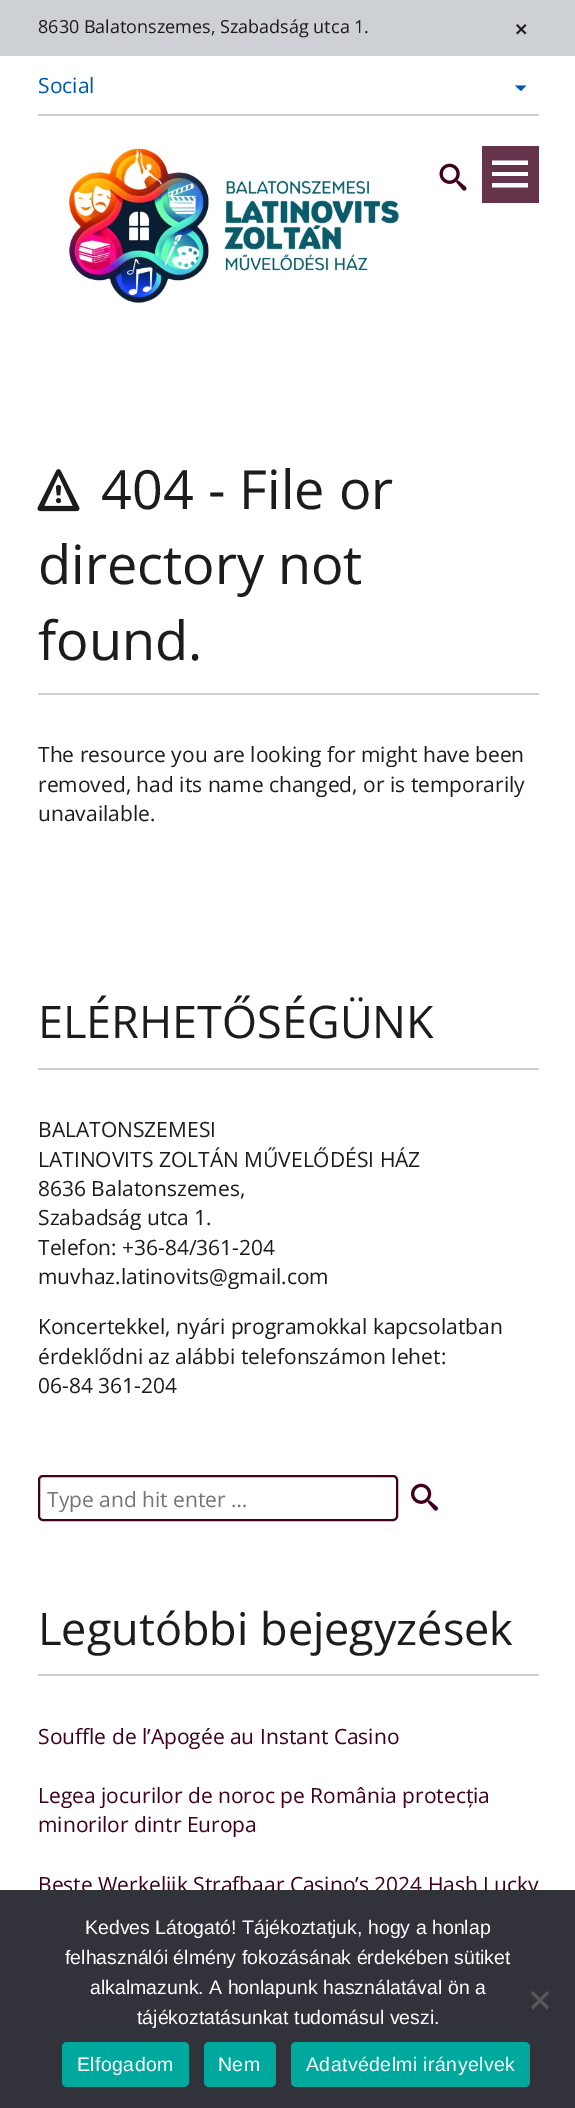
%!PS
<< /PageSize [575 2108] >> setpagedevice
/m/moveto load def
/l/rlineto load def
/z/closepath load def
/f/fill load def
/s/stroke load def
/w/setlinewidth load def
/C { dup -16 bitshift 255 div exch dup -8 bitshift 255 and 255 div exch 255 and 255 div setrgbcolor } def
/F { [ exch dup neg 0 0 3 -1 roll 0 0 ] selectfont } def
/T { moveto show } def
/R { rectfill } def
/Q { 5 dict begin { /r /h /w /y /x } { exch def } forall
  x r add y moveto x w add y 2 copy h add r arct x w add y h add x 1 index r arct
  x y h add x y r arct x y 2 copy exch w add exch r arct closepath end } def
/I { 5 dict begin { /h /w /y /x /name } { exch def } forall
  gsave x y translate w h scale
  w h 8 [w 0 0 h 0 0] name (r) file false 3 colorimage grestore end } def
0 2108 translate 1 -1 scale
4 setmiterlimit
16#FFFFFF C
0 0 575 2108 R
16#CDD0D4 C
0 0 575 56 R
/OpenSans-Regular 18 F
16#1C1C1C C
(8630 Balatonszemes, Szabadság utca 1.) 38 33 T
(1.rgb) 516 24 11 11 I
16#CDD0D4 C
38 114 501 2 R
/OpenSans-Regular 21 F
16#0058AE C
(Social) 38 93 T
515 85.5 m 6 5.5 l 5.5 -5.5 l z f
(2.rgb) 68 145 332 159 I
(3.rgb) 439 163 28 28 I
16#65334A C
482 146 57 57 R
16#FFFFFF C
528 160.5 m 0 4.5 l -36 0 l 0 -4.5 l z 492 172 m 36 0 l 0 4 l -36 0 l z 492 183 m 36 0 l 0 4.5 l -36 0 l z f
16#CDD0D4 C
38 693 501 2 R
(4.rgb) 37 469 43 43 I
/OpenSans-Regular 54 F
16#1C1C1C C
(404 - File or) 101 509 T
(directory not) 38 584 T
(found.) 38 660 T
/OpenSans-Regular 21 F
(The resource you are looking for might have been) 38 762 T
(removed, had its name changed, or is temporarily) 38 792 T
(unavailable.) 38 821 T
16#CDD0D4 C
38 1068 501 2 R
/OpenSans-Regular 45 F
16#1C1C1C C
(ELÉRHETŐSÉGÜNK) 38 1038 T
/OpenSans-Regular 21 F
(BALATONSZEMESI) 38 1137 T
(LATINOVITS ZOLTÁN MŰVELŐDÉSI HÁZ) 38 1167 T
(8636 Balatonszemes,) 38 1196 T
(Szabadság utca 1.) 38 1225 T
(Telefon: +36-84/361-204) 38 1255 T
(muvhaz.latinovits@gmail.com) 38 1284 T
(Koncertekkel, nyári programokkal kapcsolatban) 38 1334 T
(érdeklődni az alábbi telefonszámon lehet:) 38 1364 T
(06-84 361-204) 38 1393 T
16#3F001D C
2 w
39 1476 358 44 4 Q s
16#757575 C
(Type and hit enter …) 47 1507 T
(5.rgb) 411 1483 27 28 I
16#CDD0D4 C
38 1674 501 2 R
/OpenSans-Regular 45 F
16#1C1C1C C
(Legutóbbi bejegyzések) 38 1645 T
/OpenSans-Regular 21 F
16#3F001D C
(Souffle de l’Apogée au Instant Casino) 38 1744 T
(Legea jocurilor de noroc pe România protecția) 38 1803 T
(minorilor dintr Europa) 38 1832 T
(Beste Werkelijk Strafbaar Casino’s 2024 Hash Lucky) 38 1892 T
16#32323A C
0 1890 575 218 R
/LiberationSans-Regular 19.5 F
16#FFFFFF C
(Kedves Látogató! Tájékoztatjuk, hogy a honlap) 85 1934 T
(felhasználói élmény fokozásának érdekében sütiket) 65 1964 T
(alkalmazunk. A honlapunk használatával ön a) 90 1994 T
(tájékoztatásunkat tudomásul veszi.) 137 2024 T
16#59595D C
547 1991 m 2 2.5 l -16 16 l -2 -2.5 l z f
531 1993.5 m 2 -2.5 l 16 16 l -2 2.5 l z f
16#00A99D C
62 2042 127 45 5 Q f
16#FFFFFF C
77 2071 m .4 0 (Elfogadom) ashow
16#00A99D C
204 2042 72 45 5 Q f
16#FFFFFF C
218 2071 m .4 0 (Nem) ashow
16#00A99D C
291 2042 239 45 5 Q f
16#FFFFFF C
306 2071 m .4 0 (Adatvédelmi irányelvek) ashow
showpage
